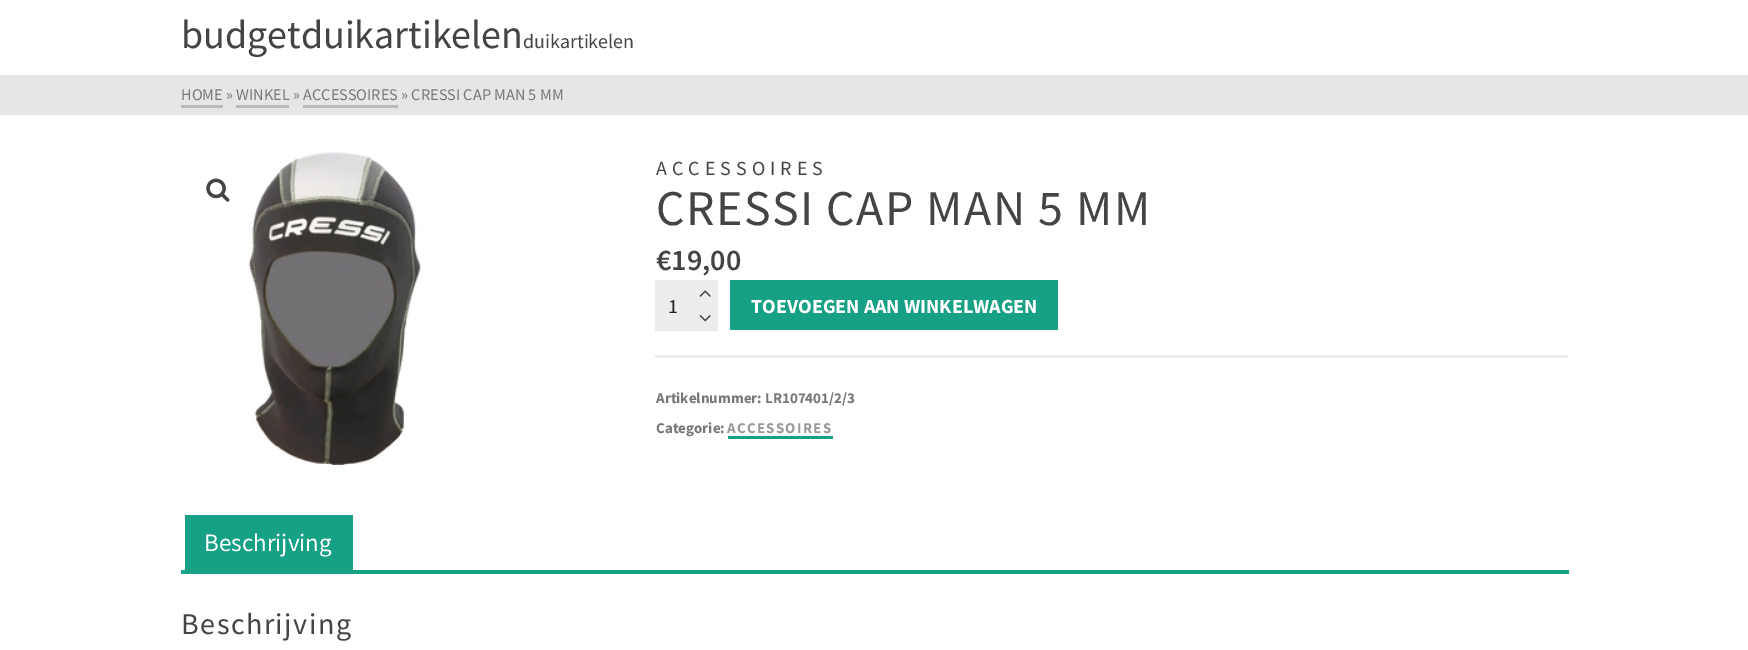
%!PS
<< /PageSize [1748 650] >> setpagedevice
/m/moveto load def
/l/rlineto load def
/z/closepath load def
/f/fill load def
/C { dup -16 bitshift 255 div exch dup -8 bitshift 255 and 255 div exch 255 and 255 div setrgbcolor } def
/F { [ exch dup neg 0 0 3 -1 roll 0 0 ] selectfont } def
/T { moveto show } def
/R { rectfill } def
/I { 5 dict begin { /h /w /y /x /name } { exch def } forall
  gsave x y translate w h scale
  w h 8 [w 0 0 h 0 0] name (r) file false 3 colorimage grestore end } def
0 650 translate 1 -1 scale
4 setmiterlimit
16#FFFFFF C
0 0 1748 650 R
/SourceSansPro-Regular 40 F
16#444444 C
(budgetduikartikelen) 181 48 T
/SourceSansPro-Regular 20 F
(duikartikelen) 523 48 T
16#E6E6E6 C
0 75 1748 40 R
/SourceSansPro-Regular 16.25 F
16#777777 C
(HOME » WINKEL » ACCESSOIRES » CRESSI CAP MAN 5 MM) 181 100 T
16#BBBBBB C
181 105 42 3 R
236 105 53 3 R
303 105 95 3 R
(1.rgb) 206 178 24 24 I
(2.rgb) 248 152 173 313 I
/SourceSansPro-Regular 20 F
16#444444 C
656 175 m 5 0 (ACCESSOIRES) ashow
/SourceSansPro-Regular 50 F
656 225 m 1.5 0 (CRESSI CAP MAN 5 MM) ashow
/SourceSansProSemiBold-SemiBold 30 F
(€19,00) 656 270 T
16#EDEDED C
655 280 63 50 R
(3.rgb) 699 290 12 7 I
16#E6E6E6 C
655 330 m 0 1 l 63 0 l 0 -50 l 0 49 l z f
/SourceSansPro-Regular 20 F
16#222222 C
(1) 668 313 T
(4.rgb) 699 315 12 7 I
16#16A085 C
730 280 328 50 R
/SourceSansPro-Bold 20 F
16#FFFFFF C
(TOEVOEGEN AAN WINKELWAGEN) 751 313 T
16#EEEEEE C
655 355 913 3 R
/SourceSansPro-Bold 15 F
16#777777 C
(Artikelnummer: LR107401/2/3) 656 403 T
(Categorie:) 656 433 T
16#999999 C
727 433 m 1.25 0 (ACCESSOIRES) ashow
16#16A085 C
728 436 105 3 R
185 515 168 55 R
/SourceSansPro-Regular 25 F
16#FFFFFF C
(Beschrijving) 204 551 T
16#16A085 C
181 570 1388 4 R
/SourceSansPro-Regular 30 F
16#444444 C
181 634 m 1.5 0 (Beschrijving) ashow
showpage
